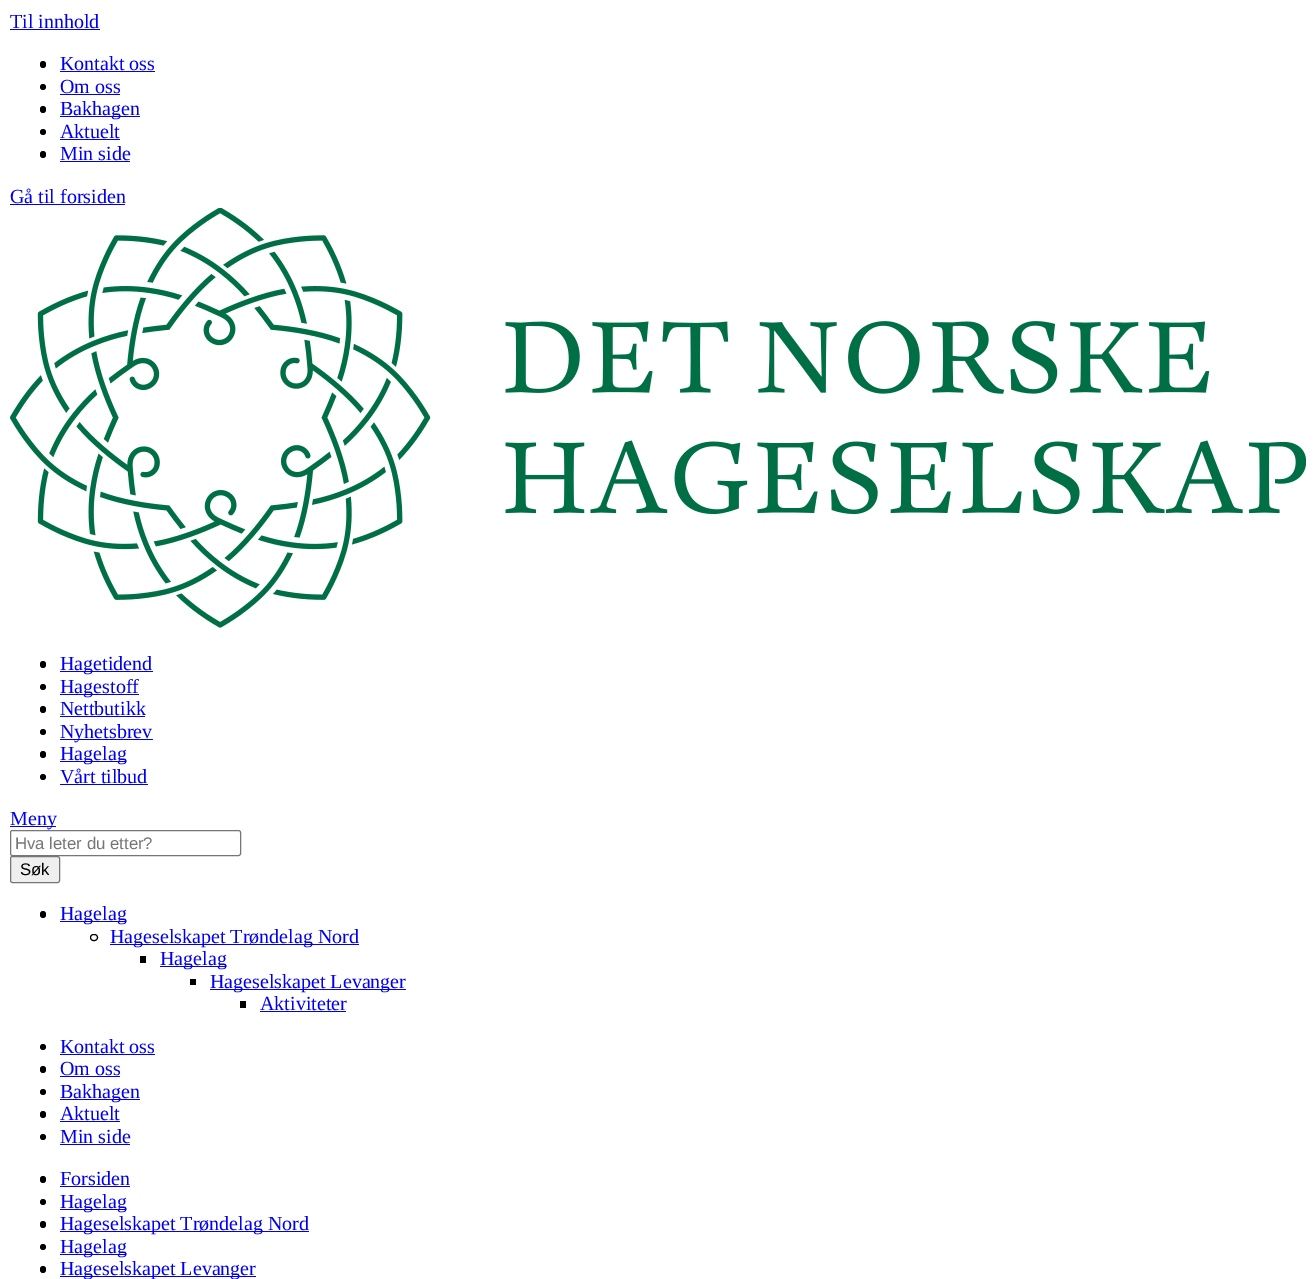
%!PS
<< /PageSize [1316 1279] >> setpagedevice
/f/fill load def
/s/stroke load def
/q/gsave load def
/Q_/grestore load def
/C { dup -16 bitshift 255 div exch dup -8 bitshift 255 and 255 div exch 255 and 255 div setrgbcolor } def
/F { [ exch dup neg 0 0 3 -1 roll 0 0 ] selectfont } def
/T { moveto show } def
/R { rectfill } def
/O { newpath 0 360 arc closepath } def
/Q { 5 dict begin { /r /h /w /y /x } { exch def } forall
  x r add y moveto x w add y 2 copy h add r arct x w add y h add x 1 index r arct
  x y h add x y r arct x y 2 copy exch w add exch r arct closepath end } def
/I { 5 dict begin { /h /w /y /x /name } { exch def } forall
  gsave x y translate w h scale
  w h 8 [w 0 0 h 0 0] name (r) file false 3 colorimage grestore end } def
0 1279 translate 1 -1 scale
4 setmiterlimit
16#FFFFFF C
0 0 1316 1279 R
/LiberationSerif-Regular 20 F
16#0000EE C
(Til innhold) 10 28 T
10 29 90 1 R
16#000000 C
40 61 6 7 3 Q f
16#0000EE C
(Kontakt oss) 60 70 T
60 71 95 1 R
16#000000 C
43 87 3 O f
16#0000EE C
(Om oss) 60 93 T
60 94 60 1 R
16#000000 C
40 106 6 7 3 Q f
16#0000EE C
60 116 80 1 R
(Bakhagen) 60 115 T
16#000000 C
43 132 3 O f
16#0000EE C
(Aktuelt) 60 138 T
60 139 60 1 R
16#000000 C
40 151 6 7 3 Q f
16#0000EE C
(Min side) 60 160 T
60 161 70 1 R
(Gå til forsiden) 10 203 T
10 204 115 1 R
(1.rgb) 10 208 1296 420 I
16#000000 C
40 661 6 7 3 Q f
16#0000EE C
60 671 93 1 R
(Hagetidend) 60 670 T
16#000000 C
43 687 3 O f
16#0000EE C
60 694 79 1 R
(Hagestoff) 60 693 T
16#000000 C
40 706 6 7 3 Q f
16#0000EE C
(Nettbutikk) 60 715 T
60 716 85 1 R
16#000000 C
43 732 3 O f
16#0000EE C
60 739 93 1 R
(Nyhetsbrev) 60 738 T
16#000000 C
40 751 6 7 3 Q f
16#0000EE C
60 761 66 1 R
(Hagelag) 60 760 T
16#000000 C
43 777 3 O f
16#0000EE C
(Vårt tilbud) 60 783 T
60 784 88 1 R
10 826 46 1 R
(Meny) 10 825 T
16#767676 C
10.5 830.5 230 25 2 Q s
/LiberationSans-Regular 16.75 F
16#757575 C
(Hva leter du etter?) 15 849 T
16#EFEFEF C
10.5 856.5 49 26 2 Q q f Q_
16#767676 C
s
16#000000 C
(Søk) 20 875 T
40 911 6 7 3 Q f
16#0000EE C
60 921 66 1 R
/LiberationSerif-Regular 20 F
(Hagelag) 60 920 T
16#000000 C
90.5 934.5 7 6 3 Q s
16#0000EE C
110 944 249 1 R
(Hageselskapet Trøndelag Nord) 110 943 T
16#000000 C
140 956 6 7 R
16#0000EE C
160 966 66 1 R
(Hagelag) 160 965 T
16#000000 C
190 979 6 6 R
16#0000EE C
210 989 196 1 R
(Hageselskapet Levanger) 210 988 T
16#000000 C
240 1001 6 7 R
16#0000EE C
(Aktiviteter) 260 1010 T
260 1011 86 1 R
16#000000 C
43 1047 3 O f
16#0000EE C
(Kontakt oss) 60 1053 T
60 1054 95 1 R
16#000000 C
40 1066 6 7 3 Q f
16#0000EE C
(Om oss) 60 1075 T
60 1076 60 1 R
16#000000 C
43 1092 3 O f
16#0000EE C
60 1099 80 1 R
(Bakhagen) 60 1098 T
16#000000 C
40 1111 6 7 3 Q f
16#0000EE C
(Aktuelt) 60 1120 T
60 1121 60 1 R
16#000000 C
43 1137 3 O f
16#0000EE C
(Min side) 60 1143 T
60 1144 70 1 R
16#000000 C
40 1176 6 7 3 Q f
16#0000EE C
(Forsiden) 60 1185 T
60 1186 70 1 R
16#000000 C
43 1202 3 O f
16#0000EE C
60 1209 66 1 R
(Hagelag) 60 1208 T
16#000000 C
40 1221 6 7 3 Q f
16#0000EE C
60 1231 249 1 R
(Hageselskapet Trøndelag Nord) 60 1230 T
16#000000 C
43 1247 3 O f
16#0000EE C
60 1254 66 1 R
(Hagelag) 60 1253 T
16#000000 C
40 1266 6 7 3 Q f
16#0000EE C
60 1276 196 1 R
(Hageselskapet Levanger) 60 1275 T
showpage
